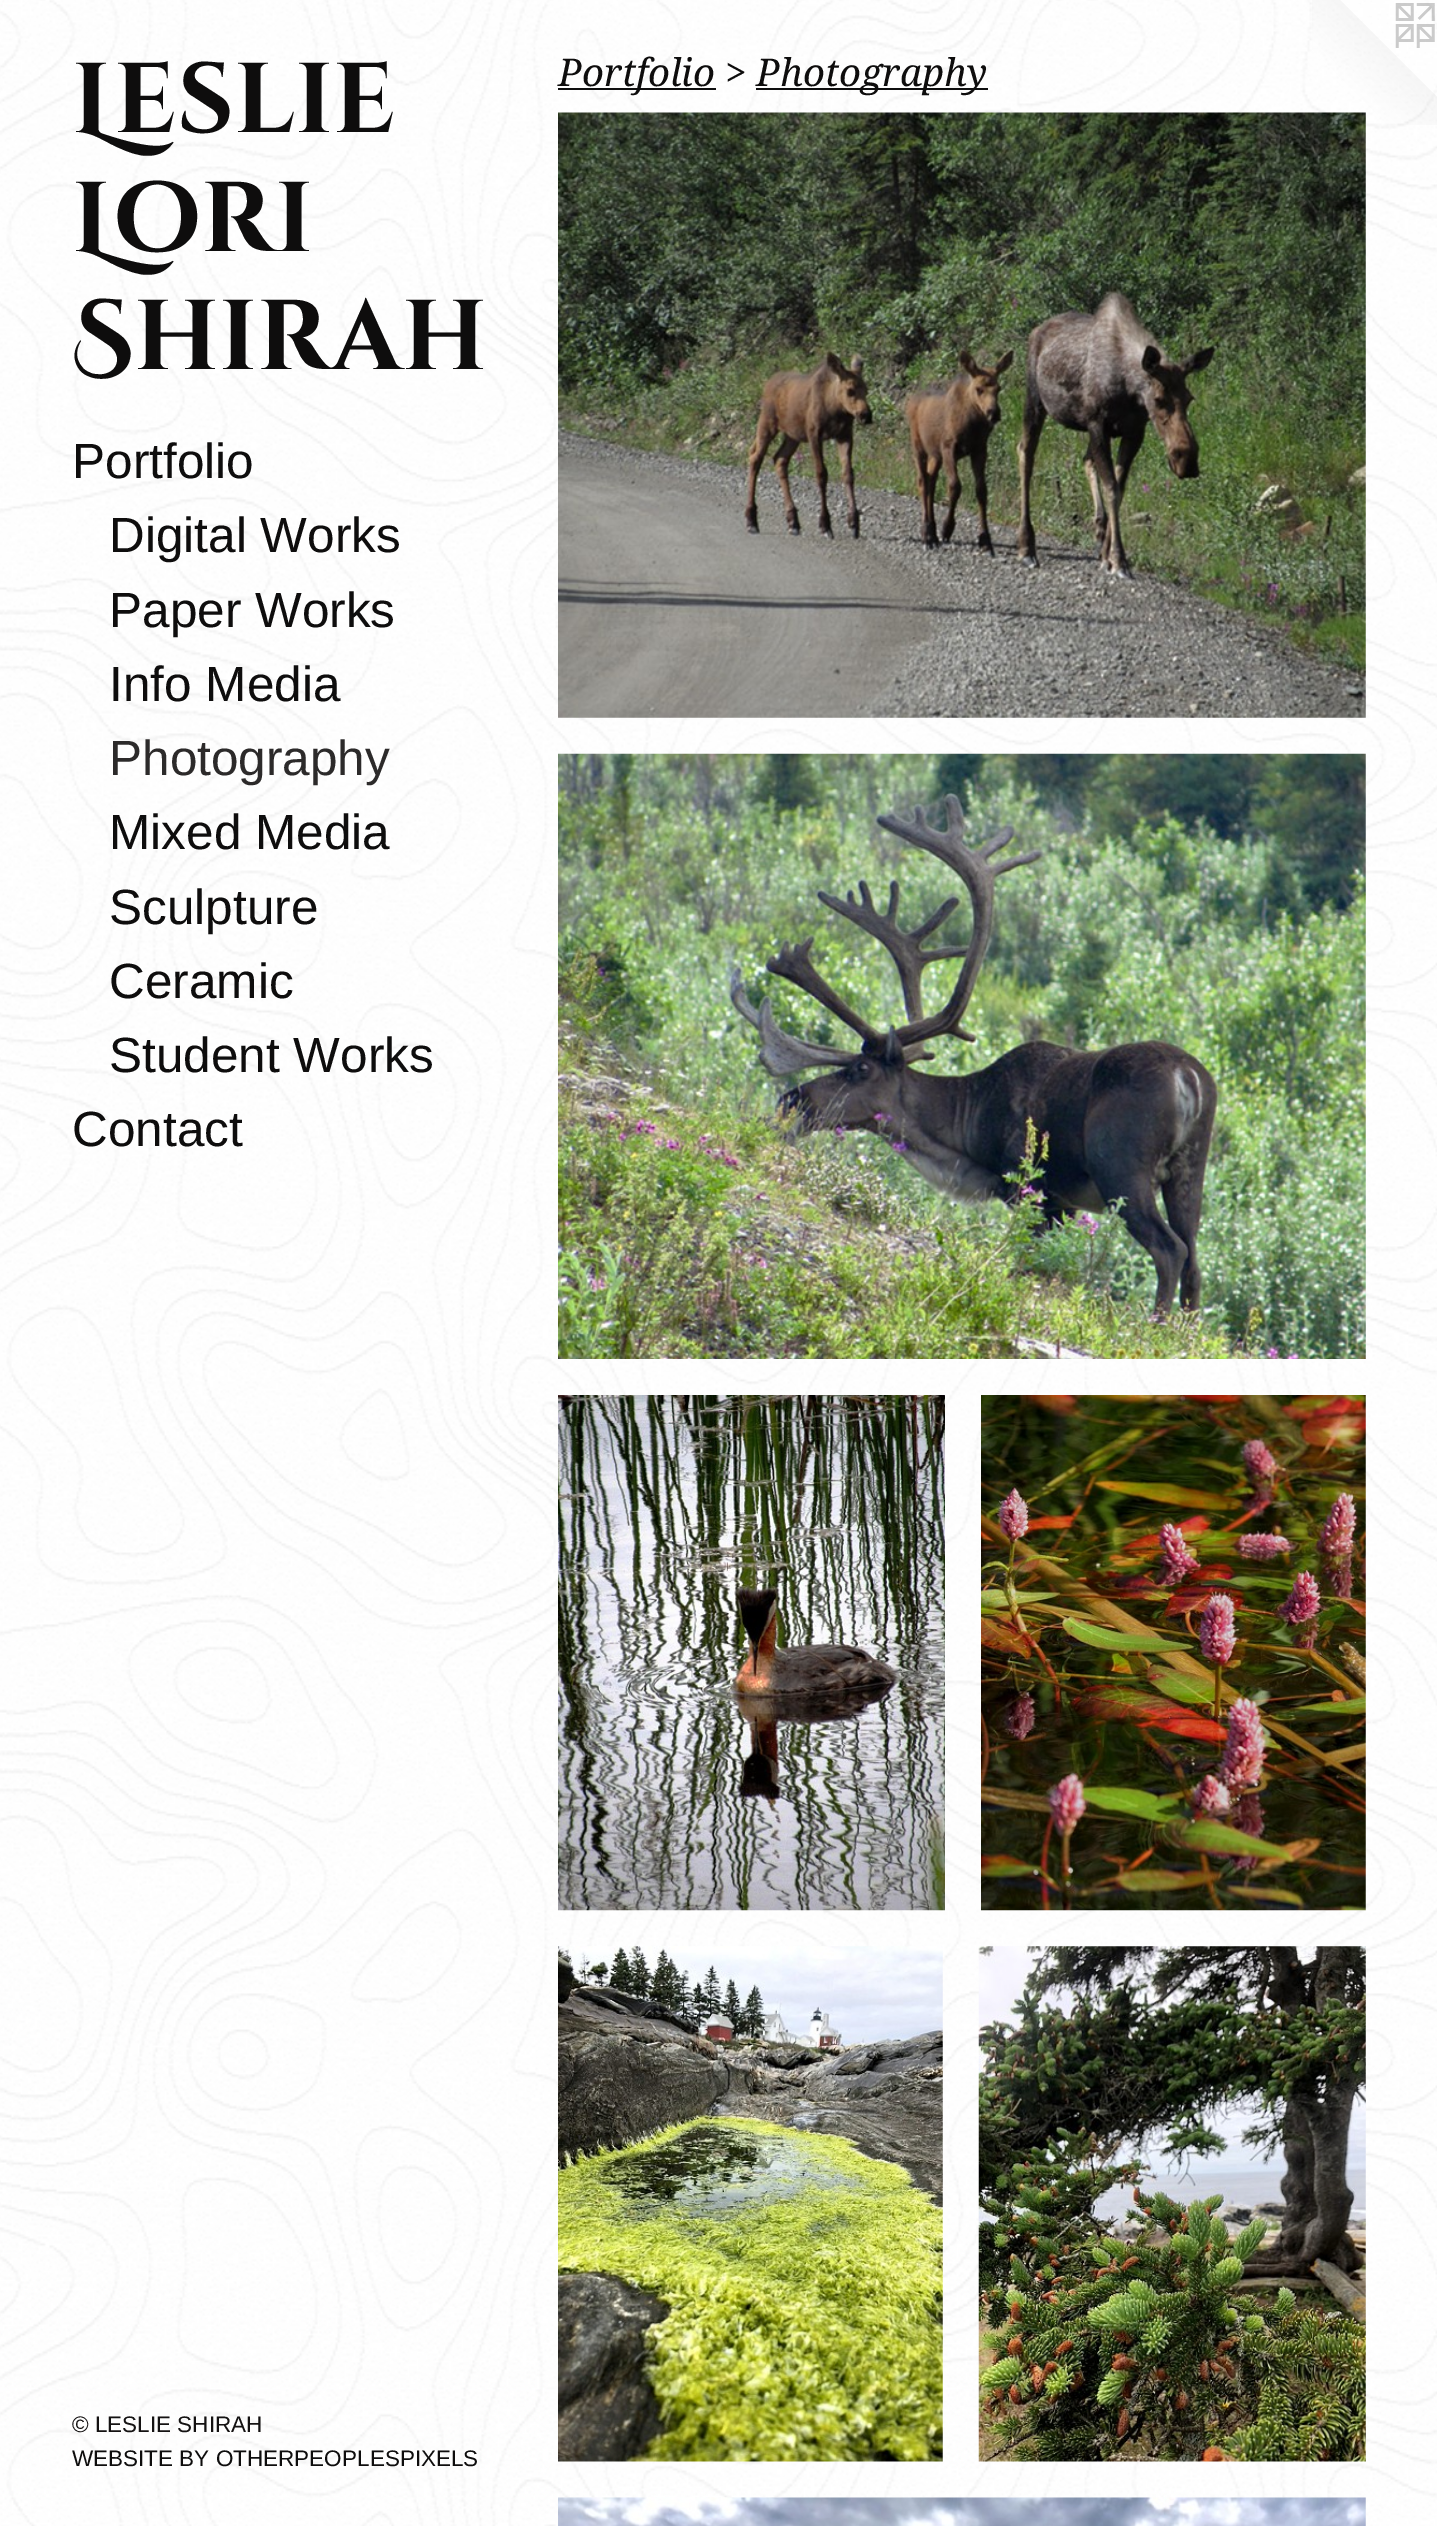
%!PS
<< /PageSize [1437 2526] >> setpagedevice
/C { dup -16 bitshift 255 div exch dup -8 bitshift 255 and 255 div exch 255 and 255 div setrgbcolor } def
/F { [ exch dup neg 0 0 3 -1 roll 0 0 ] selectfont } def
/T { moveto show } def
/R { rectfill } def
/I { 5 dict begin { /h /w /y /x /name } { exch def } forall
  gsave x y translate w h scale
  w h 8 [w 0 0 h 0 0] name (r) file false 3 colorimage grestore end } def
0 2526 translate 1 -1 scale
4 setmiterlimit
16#FFFFFF C
0 0 1437 2526 R
(1.rgb) 0 0 1437 2526 I
/CinzelDecorative-Bold 99 F
16#0E0D0D C
(Leslie) 72 132 T
(Lori) 72 251 T
(Shirah) 72 369 T
/LiberationSans-Regular 49.5 F
(Portfolio) 72 478 T
(Digital Works) 109 552 T
(Paper Works) 109 627 T
(Info Media) 109 701 T
16#2C2A2A C
(Photography) 109 775 T
16#0E0D0D C
(Mixed Media) 109 849 T
(Sculpture) 109 924 T
(Ceramic) 109 998 T
(Student Works) 109 1072 T
(Contact) 72 1146 T
/LiberationSans-Regular 22.5 F
16#141212 C
(© LESLIE SHIRAH) 72 2432 T
16#0E0D0D C
(WEBSITE BY OTHERPEOPLESPIXELS) 72 2466 T
16#0E0E0E C
558 88 158 2 R
/DroidSerif-Italic 38.25 F
16#0E0D0D C
(Portfolio >) 558 86 T
16#0E0E0E C
756 88 232 2 R
16#0E0D0D C
(Photography) 756 86 T
(9.rgb) 1312 0 125 125 I
(2.rgb) 558 112 808 606 I
(3.rgb) 558 753 808 606 I
(4.rgb) 558 1395 387 516 I
(5.rgb) 981 1395 385 516 I
(6.rgb) 558 1946 385 516 I
(7.rgb) 978 1946 388 516 I
(8.rgb) 558 2497 808 29 I
showpage
